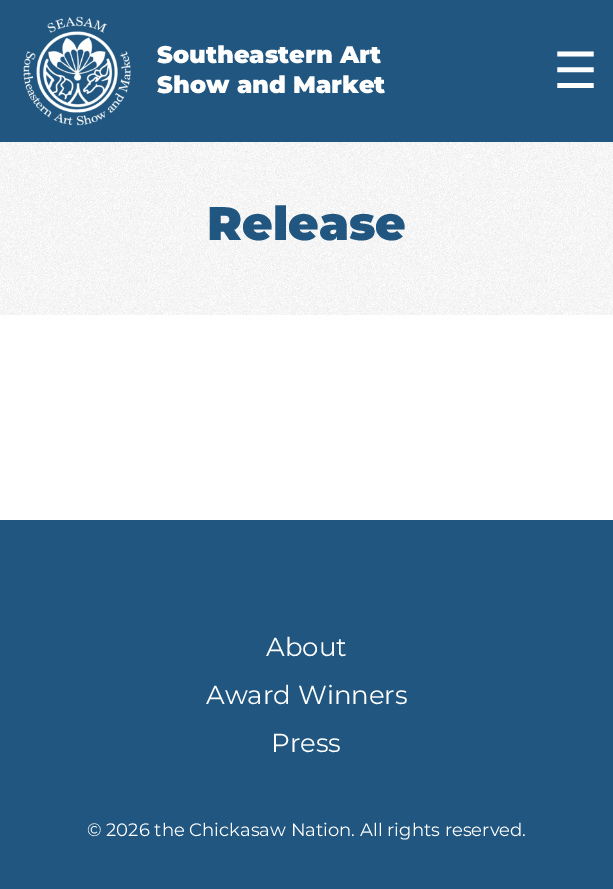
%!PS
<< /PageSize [613 889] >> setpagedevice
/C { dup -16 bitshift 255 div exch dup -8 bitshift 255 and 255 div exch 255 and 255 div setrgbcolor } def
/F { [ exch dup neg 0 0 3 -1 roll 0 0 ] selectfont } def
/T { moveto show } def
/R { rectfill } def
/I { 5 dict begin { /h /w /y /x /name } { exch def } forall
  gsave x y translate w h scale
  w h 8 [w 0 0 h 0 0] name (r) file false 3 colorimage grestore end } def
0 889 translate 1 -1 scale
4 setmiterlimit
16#FFFFFF C
0 0 613 889 R
16#20567F C
0 0 613 142 R
(1.rgb) 23 16 108 110 I
/Montserrat-Black 24 F
16#FFFFFF C
(Southeastern Art) 157 63 T
(Show and Market) 157 93 T
/DejaVuSans-Regular 50 F
(☰) 553 88 T
(2.rgb) 0 142 613 173 I
/Montserrat-Black 47 F
16#20567F C
(Release) 207 240 T
0 520 613 369 R
/Montserrat-Regular 26 F
16#FFFFFF C
(About) 266 656 T
(Award Winners) 206 704 T
(Press) 271 752 T
/Montserrat-Regular 18 F
(© 2026 the Chickasaw Nation. All rights reserved.) 87 836 T
showpage
